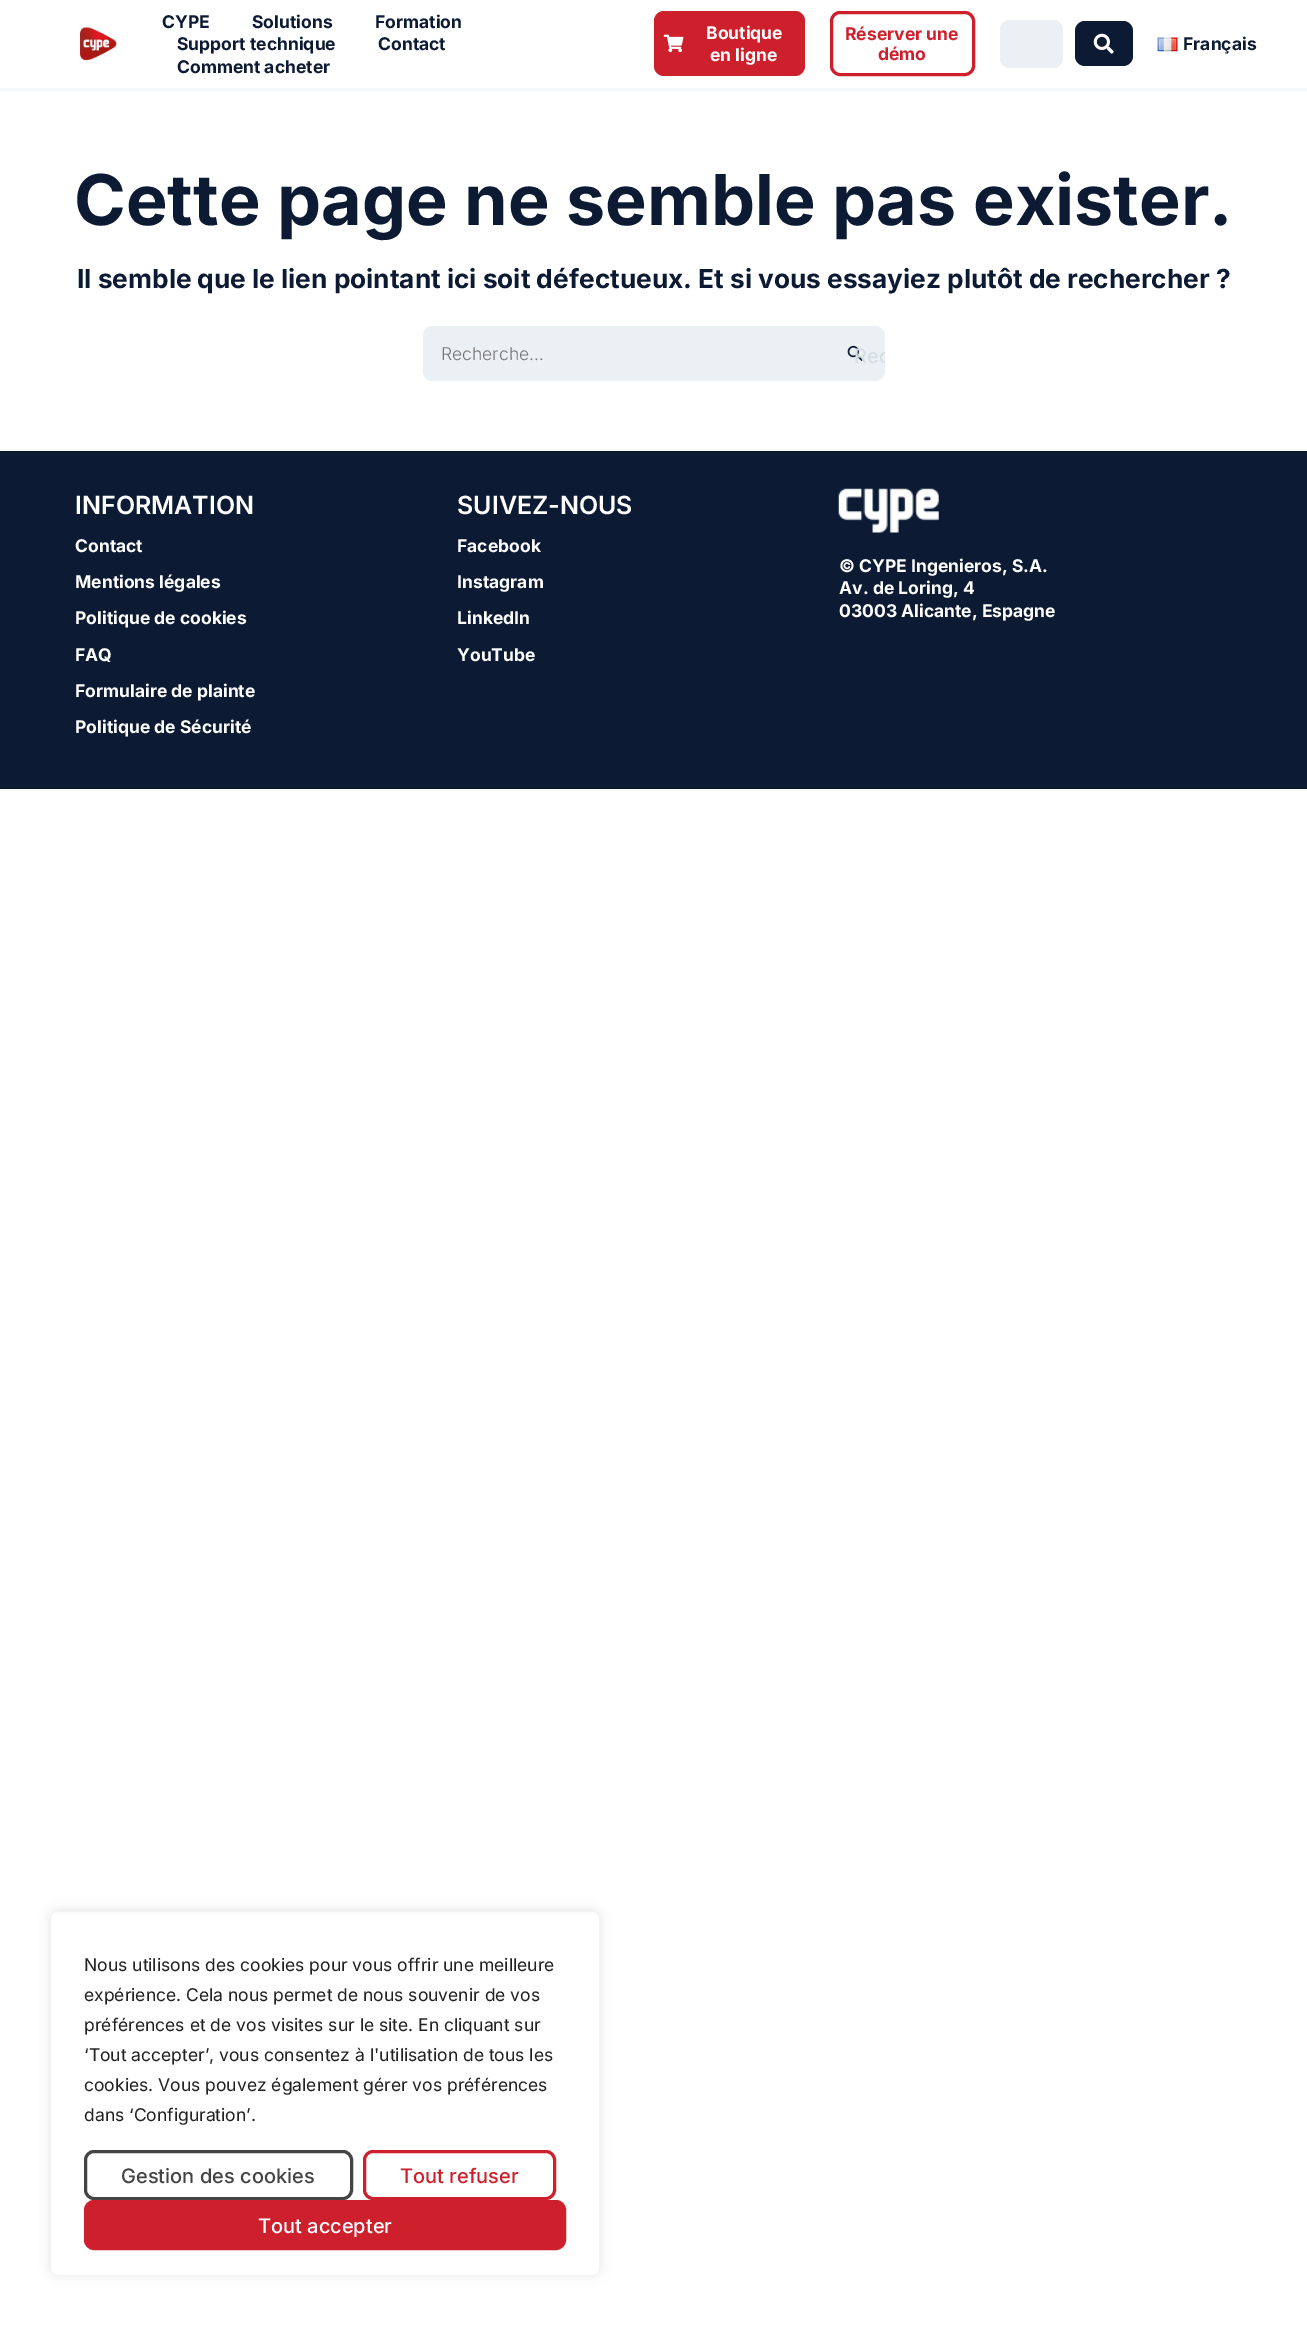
%!PS
<< /PageSize [1307 2326] /PageUsesTransparency true >> setpagedevice
/f/fill load def
/s/stroke load def
/q/gsave load def
/Q_/grestore load def
/w/setlinewidth load def
/C { dup -16 bitshift 255 div exch dup -8 bitshift 255 and 255 div exch 255 and 255 div setrgbcolor } def
/F { [ exch dup neg 0 0 3 -1 roll 0 0 ] selectfont } def
/T { moveto show } def
/R { rectfill } def
/A { dup .setfillconstantalpha .setstrokeconstantalpha } def
/Q { 5 dict begin { /r /h /w /y /x } { exch def } forall
  x r add y moveto x w add y 2 copy h add r arct x w add y h add x 1 index r arct
  x y h add x y r arct x y 2 copy exch w add exch r arct closepath end } def
/S { 12 dict begin { /a /b /q /h /w /y /x } { exch def } forall gsave /was 0 def
  9 -2 -9 { dup b mul 4 div /e exch def 1 sub .425 mul 2.718 exch exp 1 add a .99 .min exch div /now exch def
    1 1 now sub 1 was sub div sub A /was now def
    w h .min e 2 mul add 0 gt { x e sub y e sub w e 2 mul add h e 2 mul add
      q e add b .6 mul add w h .min 2 div e add .min 0 .max Q fill } if } for grestore end } def
/I { 5 dict begin { /h /w /y /x /name } { exch def } forall
  gsave x y translate w h scale
  w h 8 [w 0 0 h 0 0] name (r) file false 3 colorimage grestore end } def
0 .pushpdf14devicefilter
0 2326 translate 1 -1 scale
4 setmiterlimit
16#FFFFFF C
0 0 1307 2326 R
16#F2F7F9 C
0 88 1307 3 R
(1.rgb) 80 27 37 33 I
/Inter-Bold 17.5 F
16#0C1B33 C
(CYPE) 162 28 T
(Solutions) 252 28 T
(Formation) 375 28 T
(Support technique) 177 50 T
(Contact) 378 50 T
(Comment acheter) 177 73 T
16#CD202C C
654 11 151 65 10 Q f
(2.rgb) 663 34 21 19 I
16#FFFFFF C
(Boutique) 706 39 T
(en ligne) 710 61 T
16#CD202C C
3 w
831.5 12.5 142 62 8.5 Q s
(Réserver une) 845 40 T
(démo) 878 60 T
16#EAF0F4 C
1000 20 63 48 10 Q f
16#0C1B33 C
1075 21 58 45 10 Q f
(3.rgb) 1093 33 21 21 I
(4.rgb) 1157 37 21 15 I
(Français) 1183 50 T
/Inter-Bold 70 F
(Cette page ne semble pas exister.) 74 225 T
/Inter-Bold 26.25 F
(Il semble que le lien pointant ici soit défectueux. Et si vous essayiez plutôt de rechercher ?) 77 288 T
16#EAF0F4 C
423 326 462 55 10 Q f
/Inter-Light 17.5 F
16#757575 C
(Recherche…) 441 360 T
(5.rgb) 847 345 16 17 I
q
829 326 56 58 2.5 Q clip newpath
/Inter-Medium 20 F
16#D7DEE3 C
(Rec) 854 363 T
Q_
16#0C1B33 C
0 451 1307 338 R
/Inter-SemiBold 25 F
16#FFFFFF C
(INFORMATION) 75 514 T
/Inter-Bold 17.5 F
(Contact) 75 552 T
(Mentions légales) 75 588 T
(Politique de cookies) 75 624 T
(FAQ) 75 661 T
(Formulaire de plainte) 75 697 T
(Politique de Sécurité) 75 733 T
/Inter-SemiBold 25 F
(SUIVEZ-NOUS) 457 514 T
/Inter-Bold 17.5 F
(Facebook) 457 552 T
(Instagram) 457 588 T
(LinkedIn) 457 624 T
(YouTube) 457 661 T
(6.rgb) 838 488 101 45 I
(© CYPE Ingenieros, S.A.) 839 572 T
(Av. de Loring, 4) 839 594 T
(03003 Alicante, Espagne) 839 617 T
16#ACABAB C
50 1910 550 365 8 6 .3 S
16#FFFFFF C
50.5 1911.5 549 364 7.5 Q q f Q_
16#F4F4F4 C
1 w
s
/Inter-Regular 17.5 F
16#212121 C
(Nous utilisons des cookies pour vous offrir une meilleure) 84 1971 T
(expérience. Cela nous permet de nous souvenir de vos) 84 2001 T
(préférences et de vos visites sur le site. En cliquant sur) 84 2031 T
(‘Tout accepter’, vous consentez à l'utilisation de tous les) 84 2061 T
(cookies. Vous pouvez également gérer vos préférences) 84 2091 T
(dans ‘Configuration’.) 84 2121 T
16#444444 C
3 w
85.5 2151.5 266 47 8.5 Q s
/Inter-Medium 20 F
(Gestion des cookies) 121 2183 T
16#CD202C C
364.5 2151.5 190 47 8.5 Q s
(Tout refuser) 400 2183 T
85.5 2201.5 479 47 8.5 Q q f Q_
s
16#FFFFFF C
(Tout accepter) 258 2233 T
.poppdf14devicefilter showpage
